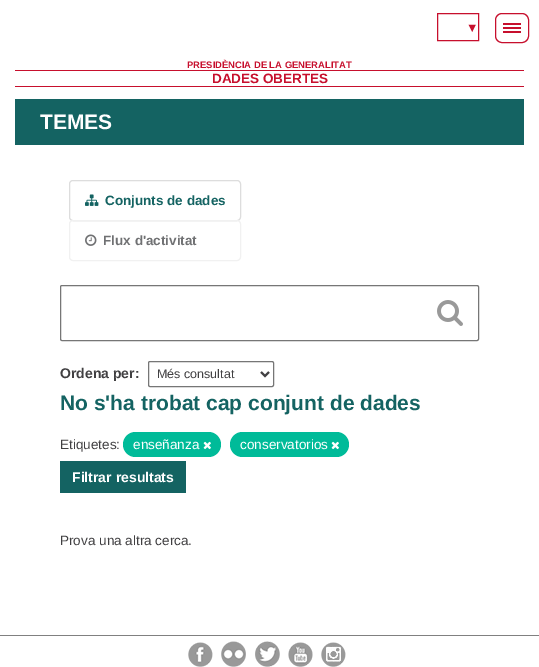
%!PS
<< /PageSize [539 667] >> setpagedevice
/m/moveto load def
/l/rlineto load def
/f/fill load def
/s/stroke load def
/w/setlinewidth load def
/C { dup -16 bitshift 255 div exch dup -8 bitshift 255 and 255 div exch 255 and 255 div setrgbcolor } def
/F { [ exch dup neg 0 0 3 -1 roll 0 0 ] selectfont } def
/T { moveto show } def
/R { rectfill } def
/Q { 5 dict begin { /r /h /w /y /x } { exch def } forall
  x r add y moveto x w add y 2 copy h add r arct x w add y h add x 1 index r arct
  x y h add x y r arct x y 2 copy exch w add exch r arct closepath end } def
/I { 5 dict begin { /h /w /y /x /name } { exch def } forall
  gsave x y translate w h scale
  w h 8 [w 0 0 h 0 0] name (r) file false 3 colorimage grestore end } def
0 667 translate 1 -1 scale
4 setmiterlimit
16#FFFFFF C
0 0 539 667 R
16#C70F2D C
437.5 13.5 41 27 rectstroke
/LiberationSans-Regular 12.5 F
(▼) 466 32 T
495.5 13.5 33 29 6.5 Q s
503 23 18 2 R
503 27 18 2 R
503 31 18 2 R
/LiberationSans-Bold 9.4 F
(PRESIDÈNCIA DE LA GENERALITAT) 187 68 T
15 70 509 1 R
15 86 509 1 R
/LiberationSans-Bold 13.5 F
(DADES OBERTES) 212 83 T
16#146362 C
15 99 509 46 R
/LiberationSans-Bold 21 F
16#FFFFFF C
(TEMES) 40 129 T
16#DDDDDD C
69.5 180.5 171 40 3.5 Q s
(1.rgb) 85 194 14 12 I
/LiberationSans-Bold 13.5 F
16#146362 C
(Conjunts de dades) 105 205 T
16#F1F1F1 C
69.5 220.5 171 40 3.5 Q s
(2.rgb) 85 234 12 12 I
16#707173 C
(Flux d'activitat) 103 245 T
16#767676 C
60.5 285.5 418 55 1.5 Q s
(3.rgb) 437 300 26 26 I
/LiberationSans-Bold 14 F
16#414042 C
(Ordena per:) 60 378 T
16#767676 C
148.5 361.5 125 25 1.5 Q s
16#414042 C
2 w
261 372 m 4 4 l 4 -4 l s
/LiberationSans-Regular 12.5 F
(Més consultat) 157 378 T
/LiberationSans-Bold 21 F
16#146362 C
(No s'ha trobat cap conjunt de dades) 60 410 T
/LiberationSans-Regular 13.5 F
16#414042 C
(Etiquetes:) 60 449 T
16#00BB99 C
123 432 98 25 12.5 Q f
16#FFFFFF C
(enseñanza) 133 449 T
(4.rgb) 203 441 8 9 I
16#00BB99 C
230 432 119 25 12.5 Q f
16#FFFFFF C
(conservatorios) 240 449 T
(4.rgb) 331 441 8 9 I
16#146362 C
60 461 126 32 R
/LiberationSans-Bold 14 F
16#FFFFFF C
(Filtrar resultats) 72 482 T
/LiberationSans-Regular 13.5 F
16#414042 C
(Prova una altra cerca.) 60 545 T
16#808080 C
0 635 539 1 R
(5.rgb) 188 642 25 25 I
(6.rgb) 221 641 25 26 I
(7.rgb) 255 641 25 26 I
(8.rgb) 288 642 25 25 I
(9.rgb) 321 642 25 25 I
showpage
